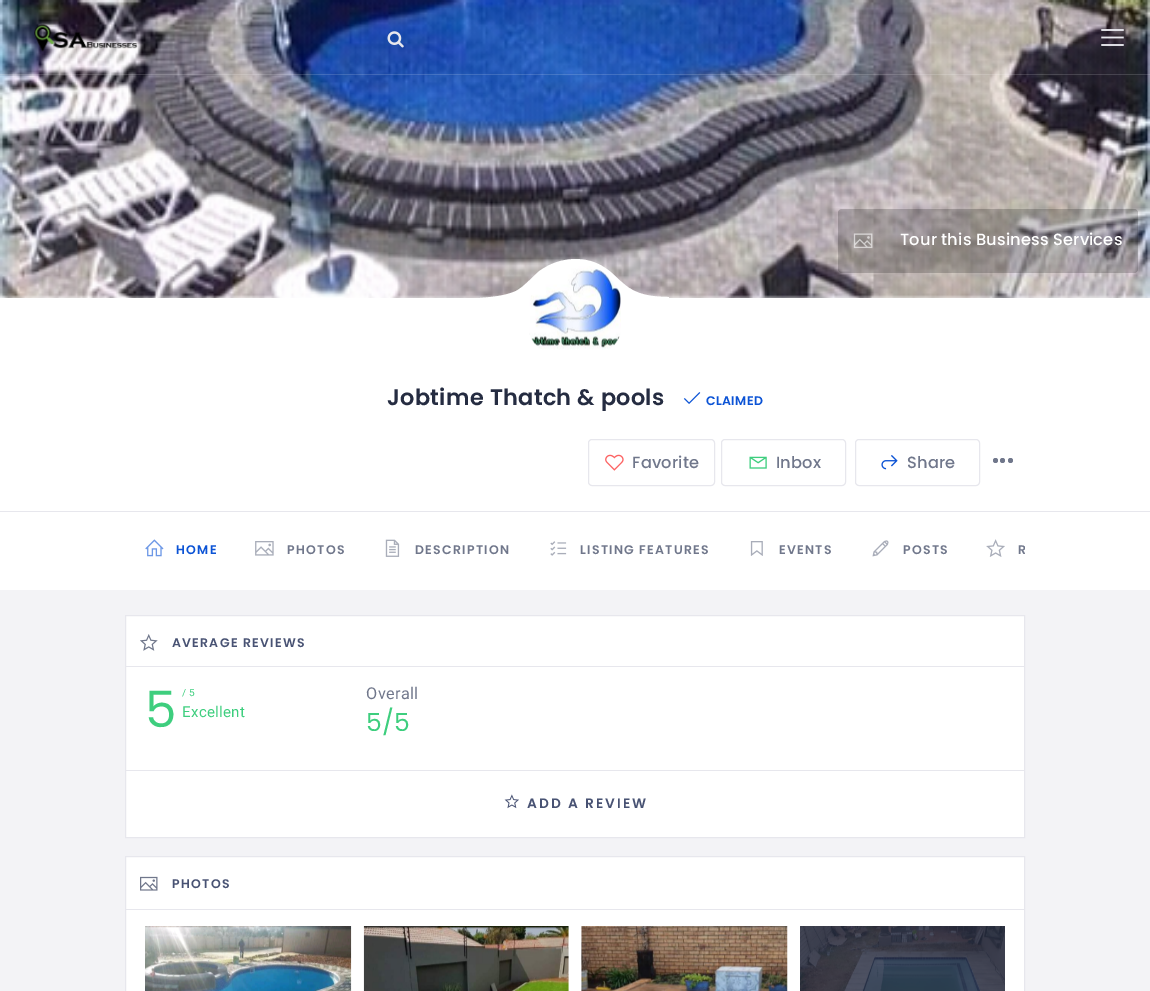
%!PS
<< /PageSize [1150 991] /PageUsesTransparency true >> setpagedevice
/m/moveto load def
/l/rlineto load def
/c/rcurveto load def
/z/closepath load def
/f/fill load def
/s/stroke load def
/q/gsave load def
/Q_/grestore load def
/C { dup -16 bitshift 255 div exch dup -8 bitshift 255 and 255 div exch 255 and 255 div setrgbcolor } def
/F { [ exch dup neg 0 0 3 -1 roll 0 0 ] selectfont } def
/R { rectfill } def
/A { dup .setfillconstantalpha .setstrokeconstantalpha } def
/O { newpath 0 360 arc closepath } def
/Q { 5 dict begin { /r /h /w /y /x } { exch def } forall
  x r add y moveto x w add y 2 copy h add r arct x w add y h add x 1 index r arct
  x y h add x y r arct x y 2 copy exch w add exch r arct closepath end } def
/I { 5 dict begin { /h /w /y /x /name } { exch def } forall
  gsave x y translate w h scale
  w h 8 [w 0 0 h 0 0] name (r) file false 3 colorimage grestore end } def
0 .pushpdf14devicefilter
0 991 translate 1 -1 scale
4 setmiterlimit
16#FFFFFF C
0 0 1150 991 R
(4.rgb) 0 0 1150 298 I
(1.rgb) 34 24 104 28 I
(2.rgb) 387 31 17 17 I
(3.rgb) 1101 29 23 17 I
0.15 A
0 74 1150 1 R
0.2 A
16#000000 C
838 209 300 64 4 Q f
1 A
(5.rgb) 853 233 20 16 I
/Poppins-Medium 16.25 F
16#FFFFFF C
900 245 m .15 0 (Tour this Business Services) ashow
16#E7E7ED C
0 511 1150 1 R
16#FFFFFF C
624 284 m -6 -5 -11 -11 -17 -15 c -21 -15 -48 -12 -68 2 c -8 7 -14 15 -23 20 c -11 5 -24 6 -36 7 c 0 29 l 189 0 l 0 -30 l -16 0 -33 -2 -45 -13 c z f
(6.rgb) 529 266 92 84 I
/Poppins-SemiBold 22.4 F
16#252C41 C
387 405 m .35 0 (Jobtime Thatch & pools) ashow
(7.rgb) 683 392 18 12 I
/Poppins-SemiBold 12.5 F
16#0B53D5 C
706 405 m .35 0 (CLAIMED) ashow
16#E7E7ED C
588.5 439.5 126 46 3.5 Q s
(8.rgb) 605 454 19 17 I
/Poppins-Medium 16.25 F
16#70778B C
632 468 m .15 0 (Favorite) ashow
16#E7E7ED C
721.5 439.5 124 46 3.5 Q s
(9.rgb) 749 456 18 13 I
16#70778B C
776 468 m .15 0 (Inbox) ashow
16#E7E7ED C
855.5 439.5 124 46 3.5 Q s
(10.rgb) 881 455 17 15 I
16#70778B C
907 468 m .15 0 (Share) ashow
995.5 460.5 2.5 O f
1002.5 460.5 2.5 O f
1010.5 460.5 2.5 O f
(11.rgb) 145 539 19 18 I
/Poppins-SemiBold 12.5 F
16#0B53D5 C
176 554 m 1.25 0 (HOME) ashow
(12.rgb) 255 541 19 15 I
16#70778B C
287 554 m 1.25 0 (PHOTOS) ashow
(13.rgb) 385 539 15 18 I
415 554 m 1.25 0 (DESCRIPTION) ashow
(14.rgb) 550 541 17 15 I
580 554 m 1.25 0 (LISTING FEATURES) ashow
(15.rgb) 750 541 13 15 I
779 554 m 1.25 0 (EVENTS) ashow
(16.rgb) 872 540 17 17 I
903 554 m 1.25 0 (POSTS) ashow
(17.rgb) 986 539 19 18 I
q
125 513 900 77 rectclip
1018 554 m 1.25 0 (R) ashow
Q_
16#F3F3F6 C
0 590 1150 401 R
16#FFFFFF C
125.5 615.5 m 899 0 l 0 222 l -899 0 l z q f Q_
16#E7E7ED C
s
126 666 898 1 R
(18.rgb) 140 634 18 17 I
16#485273 C
172 647 m 1.25 0 (AVERAGE REVIEWS) ashow
/Poppins-Regular 50 F
16#3ECE7E C
145 727 m .35 0 (5) ashow
/Roboto-Regular 10 F
182 696 m .35 0 (/) ashow
189 696 m .35 0 (5) ashow
/Roboto-Regular 15 F
182 717 m .35 0 (Excellent) ashow
/Roboto-Regular 16.25 F
16#70778B C
366 699 m .35 0 (Overall) ashow
/Poppins-Regular 25 F
16#3ECE7E C
366 731 m .35 0 (5/5) ashow
16#E7E7ED C
126 770 898 1 R
(19.rgb) 504 794 15 15 I
/Poppins-SemiBold 13.75 F
16#485273 C
527 808 m 2 0 (ADD A REVIEW) ashow
16#FFFFFF C
125.5 856.5 m 899 0 l 0 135 l -899 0 l z q f Q_
16#E7E7ED C
s
126 909 898 1 R
(20.rgb) 140 876 18 15 I
/Poppins-SemiBold 12.5 F
16#485273 C
172 888 m 1.25 0 (PHOTOS) ashow
(21.rgb) 145 926 207 65 I
(22.rgb) 363 926 206 65 I
(23.rgb) 581 926 207 65 I
(24.rgb) 800 926 205 65 I
.poppdf14devicefilter showpage
